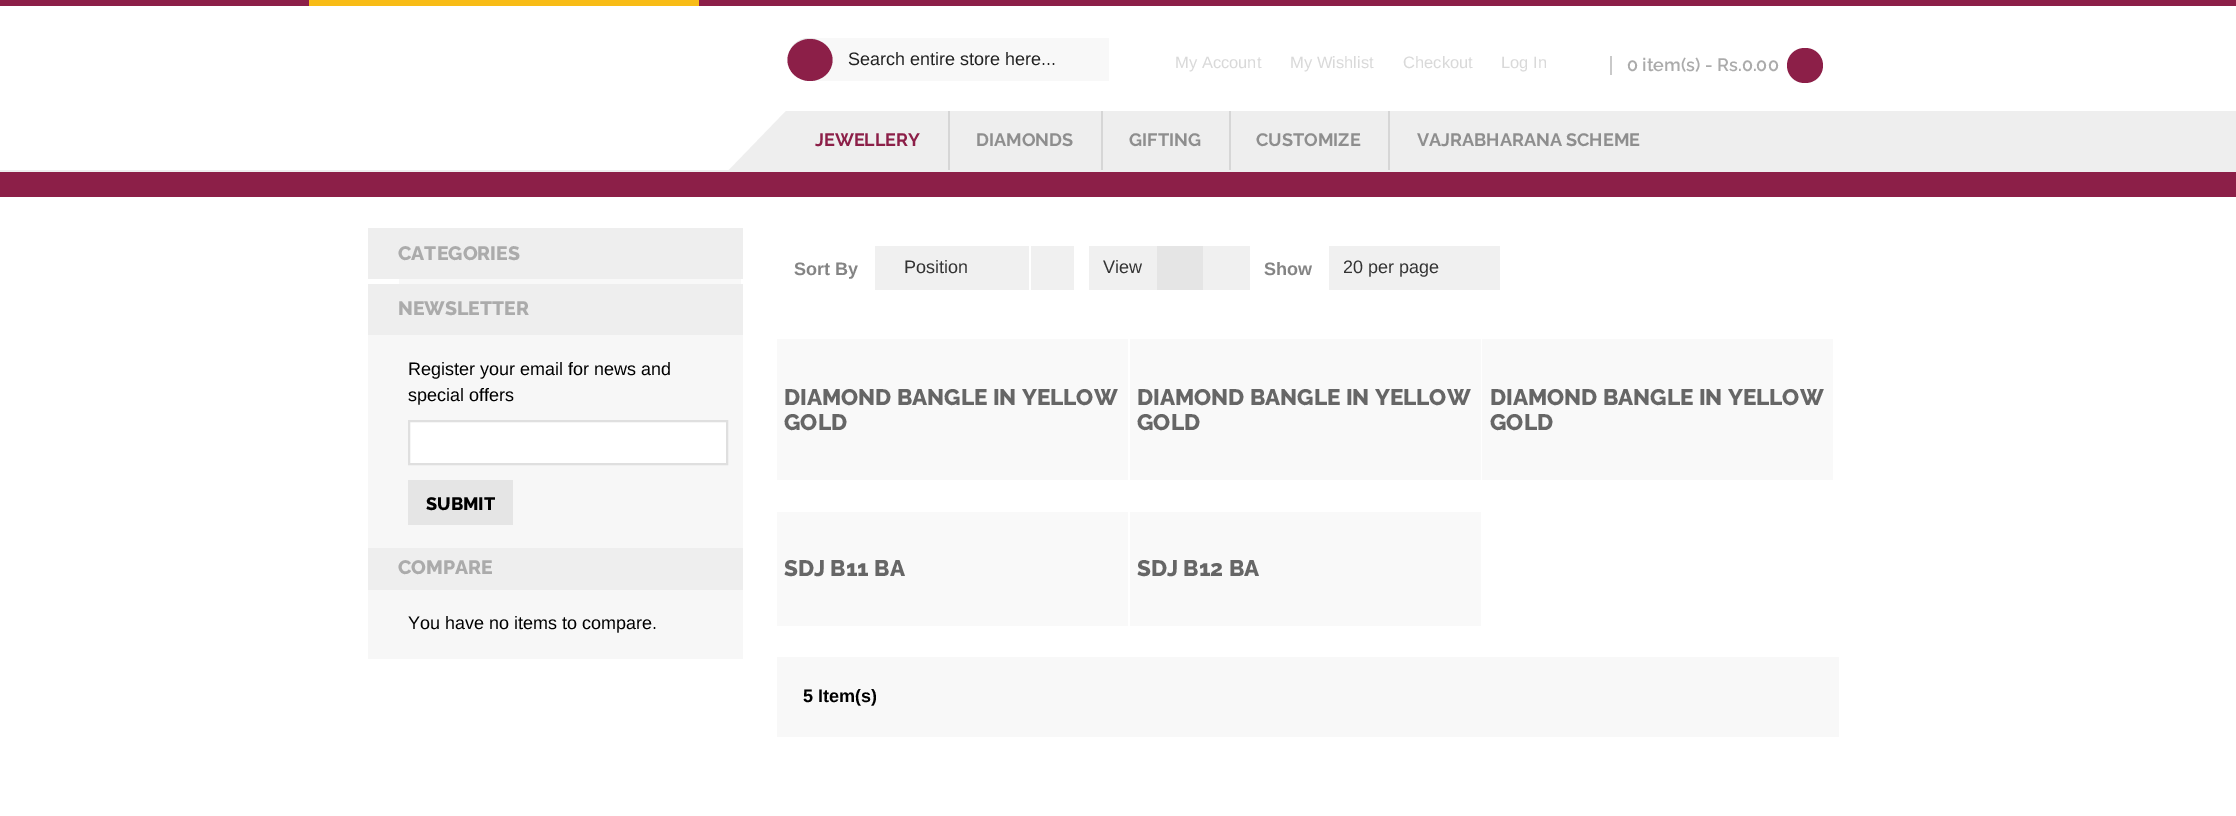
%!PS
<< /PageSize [2236 816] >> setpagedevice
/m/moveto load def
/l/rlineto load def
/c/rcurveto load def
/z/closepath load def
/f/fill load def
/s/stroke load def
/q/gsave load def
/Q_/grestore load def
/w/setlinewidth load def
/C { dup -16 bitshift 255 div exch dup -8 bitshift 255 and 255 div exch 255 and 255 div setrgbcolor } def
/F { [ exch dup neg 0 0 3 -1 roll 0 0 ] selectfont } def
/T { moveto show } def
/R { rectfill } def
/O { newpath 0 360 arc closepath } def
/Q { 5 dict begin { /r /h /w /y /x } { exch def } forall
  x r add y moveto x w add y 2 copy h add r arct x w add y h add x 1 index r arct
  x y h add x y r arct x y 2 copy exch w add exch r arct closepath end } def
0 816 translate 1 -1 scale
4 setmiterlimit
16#8C1F48 C
0 0 2236 816 R
16#FFFFFF C
0 6 2236 164 R
16#EEEEEE C
0 170 2236 2 R
16#F8BC16 C
309 0 390 6 R
16#F8F8F8 C
809 38 300 43 R
16#E5E5E5 C
809 59 21 O f
16#8C1F48 C
810 39 m 12.5 0 22.5 9.5 22.5 21 c 0 11.5 -10 21 -22.5 21 c -12.5 0 -22.5 -9.5 -22.5 -21 c 0 -11.5 10 -21 22.5 -21 c z f
/LiberationSans-Regular 18 F
16#222222 C
(Search entire store here...) 848 65 T
16#EEEEEE C
849 111 1387 59 R
786 111 m 120 0 l -58 60 l -120 0 l z f
16#D6D6D6 C
948 111 2 59 R
/Raleway-Bold 18 F
16#8C1F48 C
(JEWELLERY) 815 146 T
16#D6D6D6 C
1101 111 2 59 R
16#8E8E8E C
(DIAMONDS) 976 146 T
16#D6D6D6 C
1229 111 2 59 R
16#8E8E8E C
(GIFTING) 1129 146 T
16#D6D6D6 C
1388 111 2 59 R
16#8E8E8E C
(CUSTOMIZE) 1256 146 T
(VAJRABHARANA SCHEME) 1417 146 T
/LiberationSans-Regular 16.5 F
16#D9D9D9 C
(My Account) 1175 68 T
(My Wishlist) 1290 68 T
(Checkout) 1403 68 T
(Log In) 1501 68 T
16#C9C9C9 C
1610 56 2 19 R
/Raleway-SemiBold 18 F
16#ABABAB C
(0 item\(s\)) 1627 71 T
(- Rs.0.00) 1705 71 T
16#8C1F48 C
1787 48 36 35 17.5 Q f
16#FFFFFF C
0 197 2236 619 R
16#F8F8F8 C
399 279 342 5 R
16#EEEEEE C
368 228 375 51 R
/Raleway-ExtraBold 19.5 F
16#ABABAB C
(CATEGORIES) 398 260 T
16#EEEEEE C
368 284 375 51 R
16#ABABAB C
(NEWSLETTER) 398 315 T
16#F7F7F7 C
368 335 375 213 R
/LiberationSans-Regular 18 F
16#000000 C
(Register your email for news and) 408 375 T
(special offers) 408 401 T
16#FFFFFF C
409 421 m 318 0 l 0 43 l -318 0 l z q f Q_
16#DFDFDF C
2 w
s
16#E5E5E5 C
408 480 105 45 R
/Raleway-ExtraBold 18 F
16#000000 C
(SUBMIT) 426 510 T
16#EEEEEE C
368 548 375 42 R
/Raleway-ExtraBold 19.5 F
16#ABABAB C
(COMPARE) 398 574 T
16#F7F7F7 C
368 590 375 69 R
/LiberationSans-Regular 18 F
16#000000 C
(You have no items to compare.) 408 629 T
/LiberationSans-Bold 18 F
16#848484 C
(Sort By) 794 275 T
16#F0F0F0 C
875 246 154 44 R
/LiberationSans-Regular 18 F
16#333333 C
(Position) 904 273 T
16#F0F0F0 C
1031 246 43 44 R
1089 246 161 44 R
16#333333 C
(View) 1103 273 T
16#E5E5E5 C
1157 246 46 44 R
/LiberationSans-Bold 18 F
16#848484 C
(Show) 1264 275 T
16#F0F0F0 C
1329 246 171 44 R
/LiberationSans-Regular 18 F
16#333333 C
(20 per page) 1343 273 T
16#F9F9F9 C
777 339 351 141 R
/Raleway-ExtraBold 22.5 F
16#666666 C
(DIAMOND BANGLE IN YELLOW) 784 405 T
(GOLD) 784 430 T
16#F9F9F9 C
1130 339 351 141 R
16#666666 C
(DIAMOND BANGLE IN YELLOW) 1137 405 T
(GOLD) 1137 430 T
16#F9F9F9 C
1482 339 351 141 R
16#666666 C
(DIAMOND BANGLE IN YELLOW) 1490 405 T
(GOLD) 1490 430 T
16#F9F9F9 C
777 512 351 114 R
16#666666 C
(SDJ B11 BA) 784 576 T
16#F9F9F9 C
1130 512 351 114 R
16#666666 C
(SDJ B12 BA) 1137 576 T
16#F8F8F8 C
777 657 1062 80 R
/LiberationSans-Bold 18 F
16#000000 C
(5 Item\(s\)) 803 702 T
showpage
